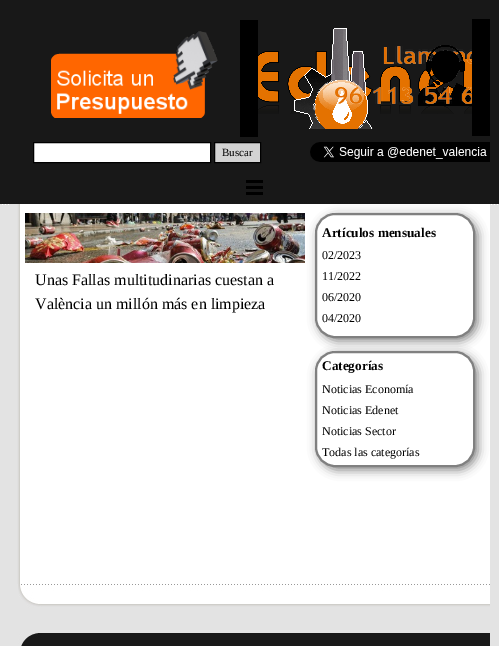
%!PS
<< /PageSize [499 646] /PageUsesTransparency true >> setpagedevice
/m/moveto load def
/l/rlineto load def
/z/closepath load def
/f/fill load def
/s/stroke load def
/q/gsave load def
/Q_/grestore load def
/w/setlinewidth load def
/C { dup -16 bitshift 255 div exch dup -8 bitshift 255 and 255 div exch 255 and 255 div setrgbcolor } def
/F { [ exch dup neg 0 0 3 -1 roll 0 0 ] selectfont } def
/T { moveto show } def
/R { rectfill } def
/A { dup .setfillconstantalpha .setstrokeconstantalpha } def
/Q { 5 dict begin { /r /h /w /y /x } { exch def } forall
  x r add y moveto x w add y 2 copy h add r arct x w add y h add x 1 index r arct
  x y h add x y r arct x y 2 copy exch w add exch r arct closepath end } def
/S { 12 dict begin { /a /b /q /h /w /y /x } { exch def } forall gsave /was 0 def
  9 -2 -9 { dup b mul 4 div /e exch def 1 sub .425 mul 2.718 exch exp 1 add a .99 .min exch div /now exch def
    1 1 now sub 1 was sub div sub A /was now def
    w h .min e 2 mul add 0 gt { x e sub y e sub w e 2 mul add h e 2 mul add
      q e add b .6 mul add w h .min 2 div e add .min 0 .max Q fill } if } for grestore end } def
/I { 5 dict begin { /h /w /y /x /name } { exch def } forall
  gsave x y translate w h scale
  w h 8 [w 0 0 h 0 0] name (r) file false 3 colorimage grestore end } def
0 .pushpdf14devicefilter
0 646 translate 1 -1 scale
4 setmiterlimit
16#FFFFFF C
0 0 499 646 R
(1.rgb) 0 0 499 646 I
(2.rgb) 51 31 167 87 I
16#000000 C
240 20 18 117 R
(6.rgb) 258 51 214 63 I
(3.rgb) 294 28 79 101 I
(5.rgb) 383 46 89 18 I
(4.rgb) 418 45 54 61 I
472 19 18 117 R
(7.rgb) 335 87 137 17 I
16#FFFFFF C
33.5 142.5 m 177 0 l 0 20 l -177 0 l z q f Q_
16#000000 C
s
16#D3D3D3 C
214.5 142.5 m 46 0 l 0 20 l -46 0 l z q f Q_
16#000000 C
s
/LiberationSerif-Regular 11 F
(Buscar) 222 156 T
(8.rgb) 310 142 180 20 I
246 180 17 3 R
246 186 17 3 R
246 192 17 3 R
(9.rgb) 11 204 479 380 I
(10.rgb) 25 213 280 50 I
/LiberationSerif-Regular 16 F
(Unas Fallas multitudinarias cuestan a) 35 285 T
(València un millón más en limpieza) 35 309 T
16#808080 C
318 216 160 125 20 5 1 S
16#FFFFFF C
316 214 158 123 19 Q q f Q_
16#808080 C
2 w
s
/LiberationSerif-Bold 13.25 F
16#000000 C
(Artículos mensuales) 322 237 T
/LiberationSerif-Regular 12 F
(02/2023) 322 259 T
(11/2022) 322 280 T
(06/2020) 322 301 T
(04/2020) 322 322 T
16#808080 C
318 354 160 116 20 5 1 S
16#FFFFFF C
316 352 158 114 19 Q q f Q_
16#808080 C
s
/LiberationSerif-Bold 13.25 F
16#000000 C
(Categorías) 322 370 T
/LiberationSerif-Regular 12 F
(Noticias Economía) 322 393 T
(Noticias Edenet) 322 414 T
(Noticias Sector) 322 435 T
(Todas las categorías) 322 456 T
(11.rgb) 18 584 472 62 I
.poppdf14devicefilter showpage
